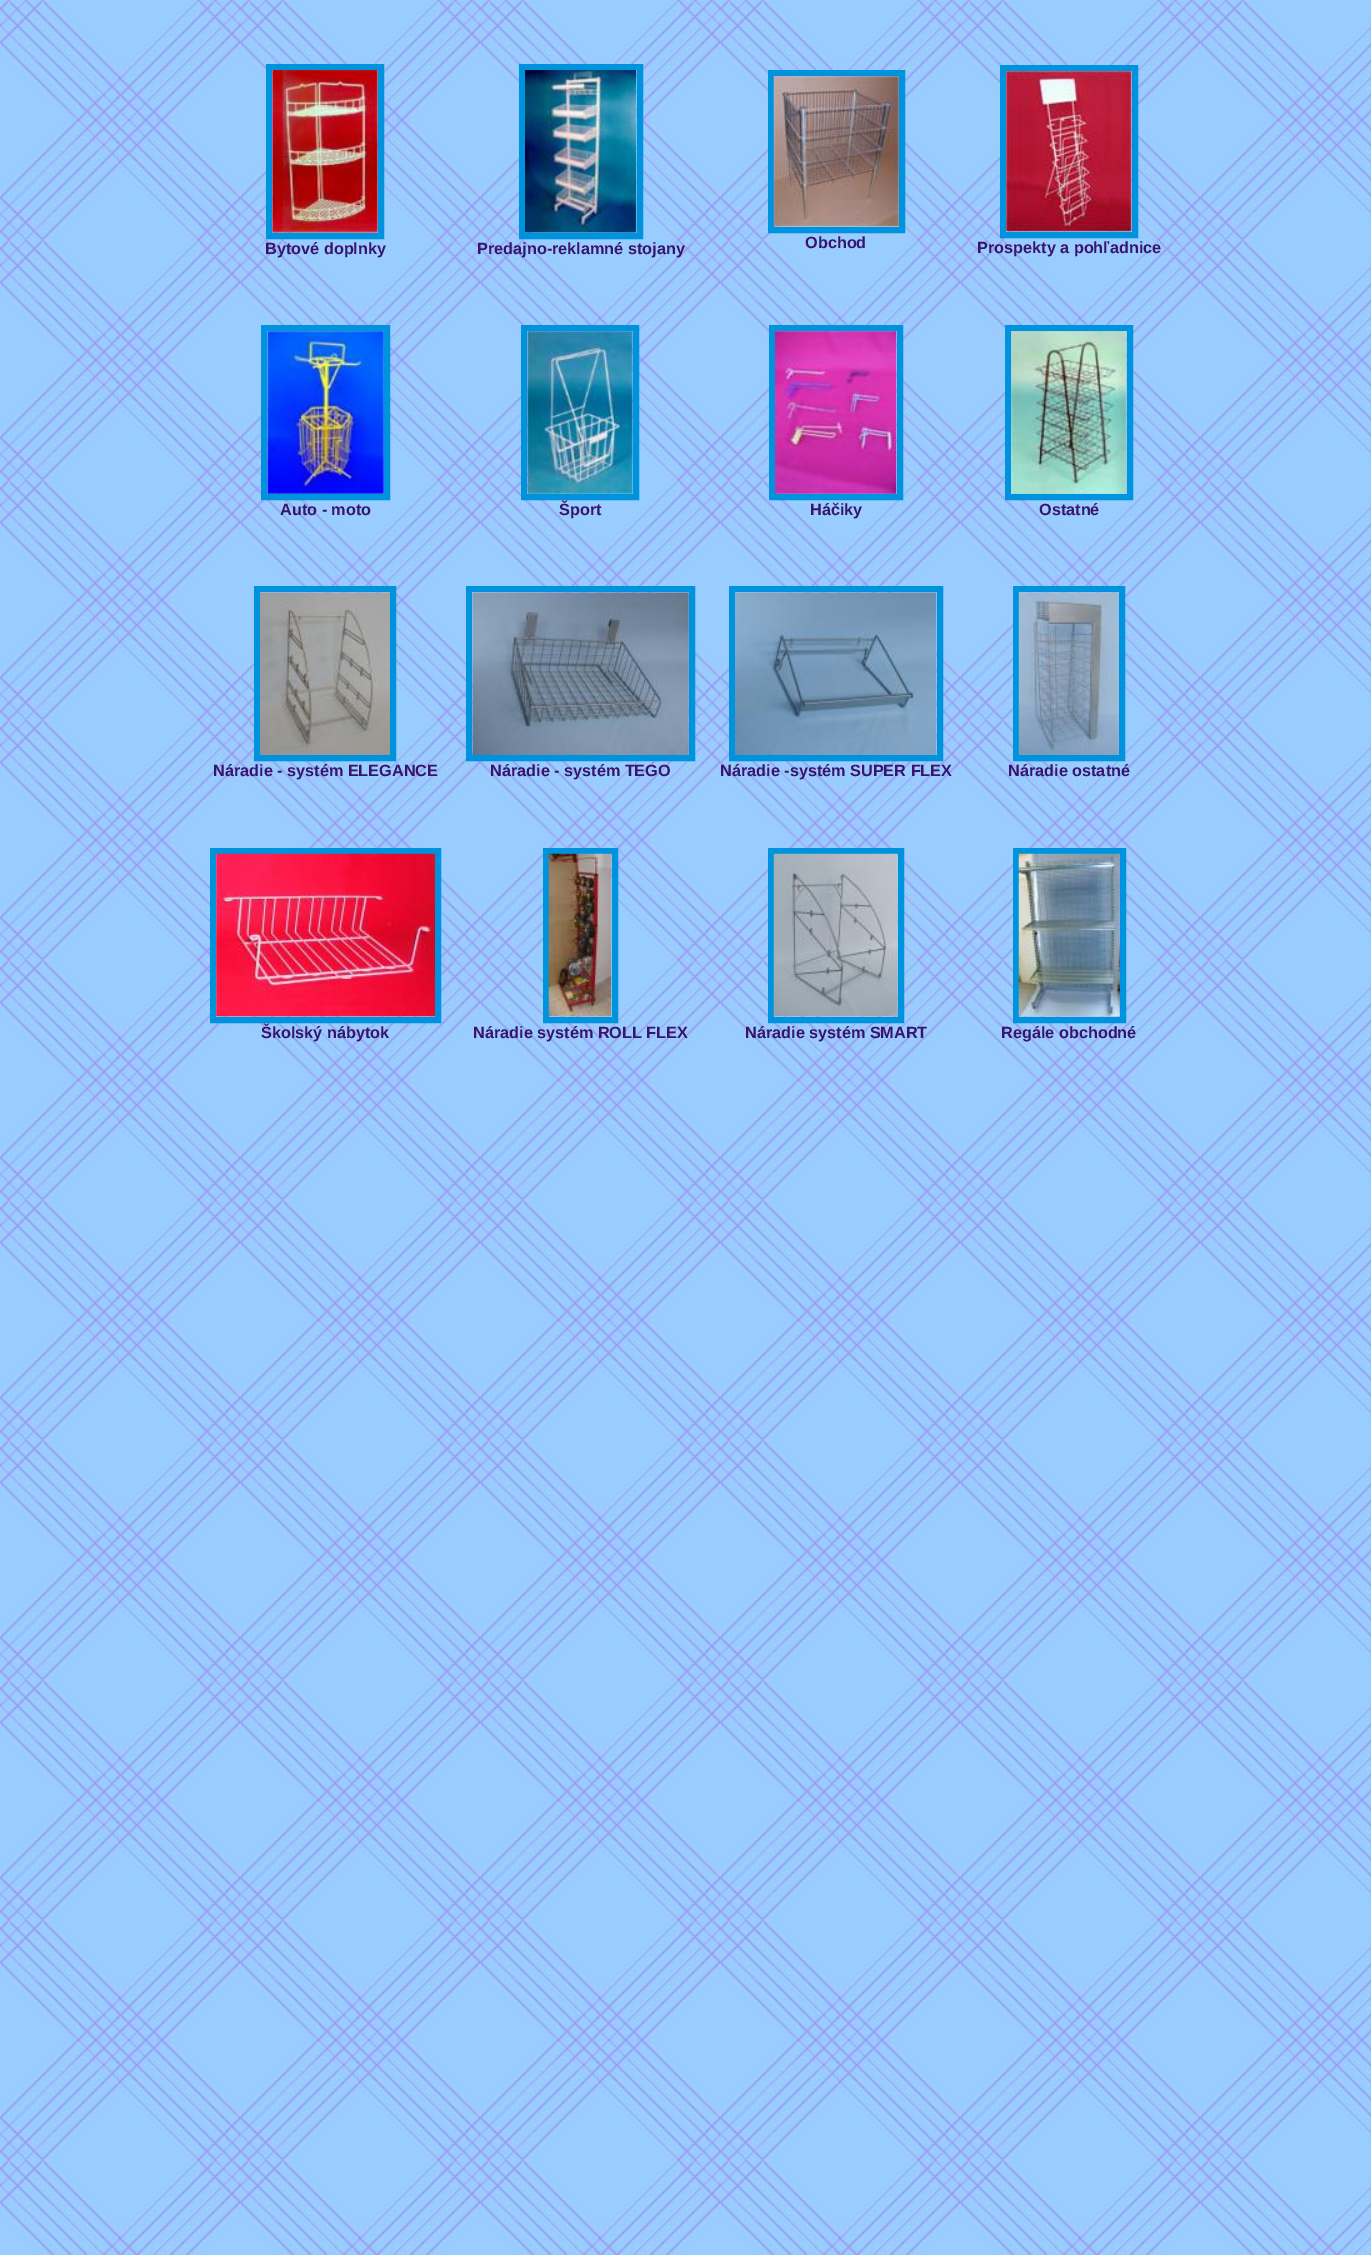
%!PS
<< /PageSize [1371 2255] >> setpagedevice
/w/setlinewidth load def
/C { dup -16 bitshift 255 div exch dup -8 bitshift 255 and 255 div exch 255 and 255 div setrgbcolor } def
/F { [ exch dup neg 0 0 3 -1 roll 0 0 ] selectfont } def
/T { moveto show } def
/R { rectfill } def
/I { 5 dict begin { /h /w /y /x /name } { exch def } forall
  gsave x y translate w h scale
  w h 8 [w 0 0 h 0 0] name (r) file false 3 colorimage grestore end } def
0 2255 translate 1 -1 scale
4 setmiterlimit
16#FFFFFF C
0 0 1371 2255 R
(1.rgb) 0 0 1371 2255 I
16#0093DD C
6 w
269 67 112 169 rectstroke
(2.rgb) 272 70 106 163 I
/LiberationSans-Bold 16.25 F
16#38146D C
(Bytové doplnky) 265 254 T
16#0093DD C
522 67 118 169 rectstroke
(3.rgb) 525 70 112 163 I
16#38146D C
(Predajno-reklamné stojany) 477 254 T
16#0093DD C
771 73 131 157 rectstroke
(4.rgb) 773 76 126 151 I
16#38146D C
(Obchod) 805 248 T
16#0093DD C
1003 68 132 167 rectstroke
(5.rgb) 1006 71 126 161 I
16#38146D C
(Prospekty a pohľadnice) 977 253 T
16#0093DD C
264 328 123 169 rectstroke
(6.rgb) 267 331 117 163 I
16#38146D C
(Auto - moto) 280 515 T
16#0093DD C
524 328 112 169 rectstroke
(7.rgb) 527 331 106 163 I
16#38146D C
(Šport) 559 515 T
16#0093DD C
772 328 128 169 rectstroke
(8.rgb) 775 331 122 163 I
16#38146D C
(Háčiky) 810 515 T
16#0093DD C
1008 328 122 169 rectstroke
(9.rgb) 1011 331 116 163 I
16#38146D C
(Ostatné) 1039 515 T
16#0093DD C
257 589 136 169 rectstroke
(10.rgb) 260 592 130 163 I
16#38146D C
(Náradie - systém ELEGANCE) 213 776 T
16#0093DD C
469 589 223 169 rectstroke
(11.rgb) 472 592 217 163 I
16#38146D C
(Náradie - systém TEGO) 490 776 T
16#0093DD C
732 589 208 169 rectstroke
(12.rgb) 735 592 202 163 I
16#38146D C
(Náradie -systém SUPER FLEX) 720 776 T
16#0093DD C
1016 589 106 169 rectstroke
(13.rgb) 1018 592 101 163 I
16#38146D C
(Náradie ostatné) 1008 776 T
16#0093DD C
213 851 225 169 rectstroke
(14.rgb) 216 853 219 164 I
16#38146D C
(Školský nábytok) 261 1038 T
16#0093DD C
546 851 69 169 rectstroke
(15.rgb) 548 853 64 164 I
16#38146D C
(Náradie systém ROLL FLEX) 473 1038 T
16#0093DD C
771 851 130 169 rectstroke
(16.rgb) 773 853 125 164 I
16#38146D C
(Náradie systém SMART) 745 1038 T
16#0093DD C
1016 851 107 169 rectstroke
(17.rgb) 1018 853 102 164 I
16#38146D C
(Regále obchodné) 1001 1038 T
showpage
